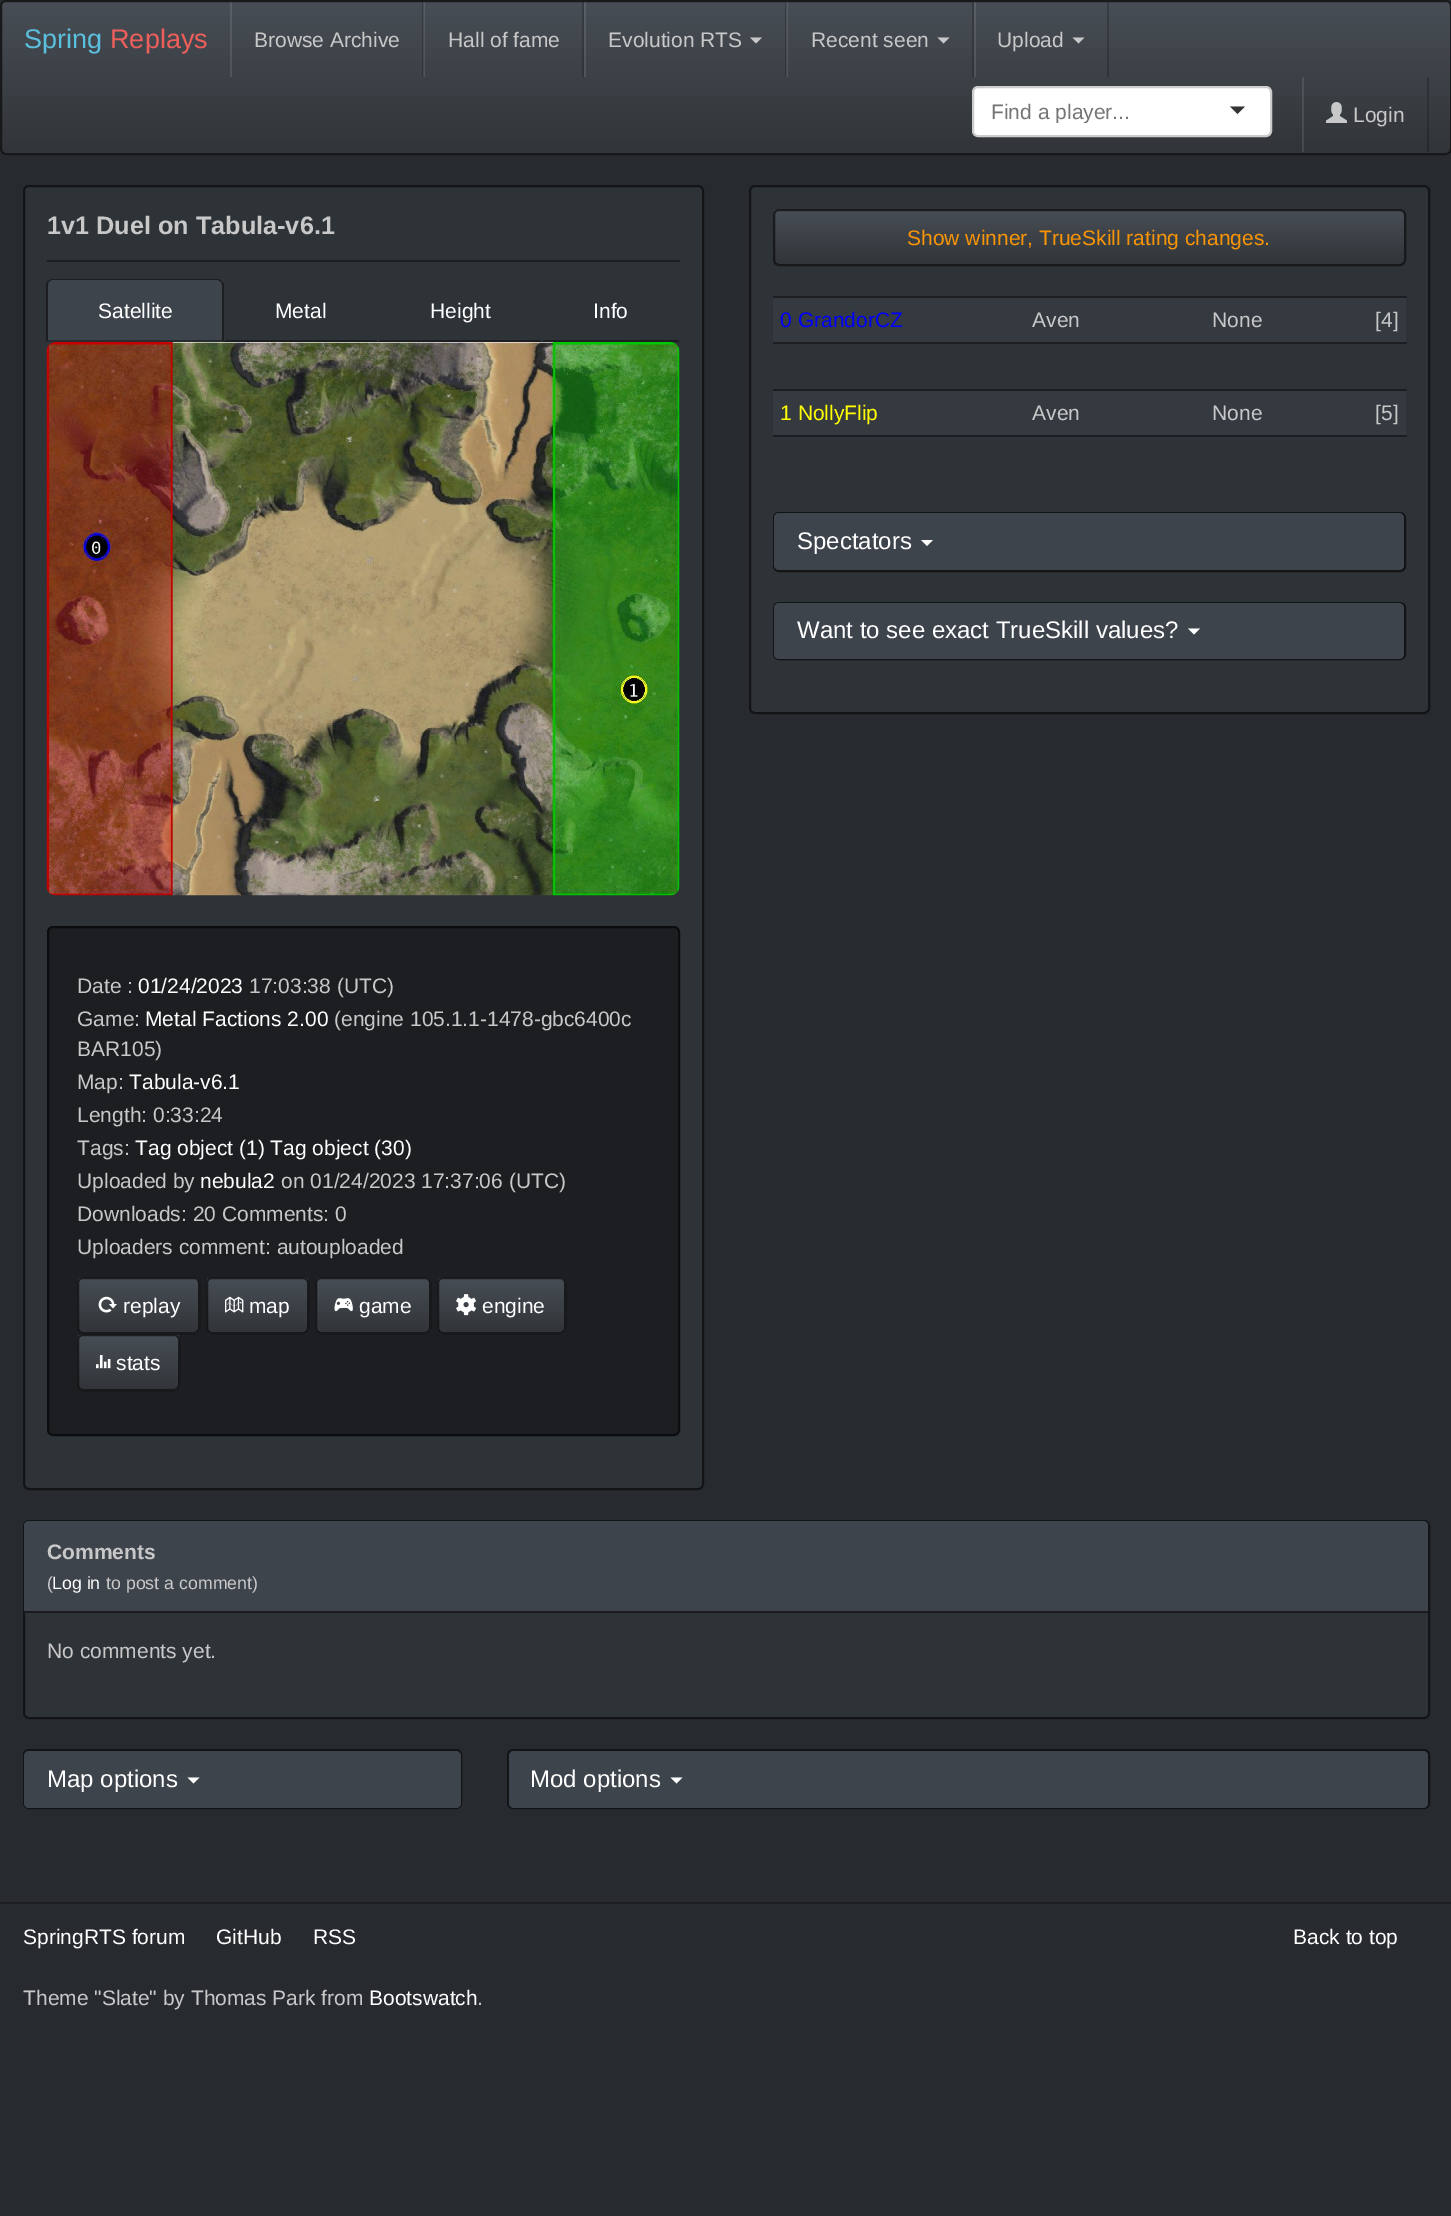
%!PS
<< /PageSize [1451 2216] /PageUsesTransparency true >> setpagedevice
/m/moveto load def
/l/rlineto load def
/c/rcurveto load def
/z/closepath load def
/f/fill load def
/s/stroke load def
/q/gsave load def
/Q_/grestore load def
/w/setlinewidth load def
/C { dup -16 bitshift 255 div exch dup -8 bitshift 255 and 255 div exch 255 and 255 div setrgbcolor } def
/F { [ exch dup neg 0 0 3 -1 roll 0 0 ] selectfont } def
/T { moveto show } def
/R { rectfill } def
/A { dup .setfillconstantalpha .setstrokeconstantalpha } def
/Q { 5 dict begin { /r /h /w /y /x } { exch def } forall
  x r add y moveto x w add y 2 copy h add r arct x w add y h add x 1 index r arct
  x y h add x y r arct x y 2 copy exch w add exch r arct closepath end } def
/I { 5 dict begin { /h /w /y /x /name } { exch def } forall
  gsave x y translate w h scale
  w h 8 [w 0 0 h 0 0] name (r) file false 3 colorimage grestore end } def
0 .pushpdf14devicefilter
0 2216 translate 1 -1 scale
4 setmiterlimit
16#272B30 C
0 0 1451 2216 R
16#3A3F44 C
0 0 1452 155 6 Q f
q 2 2 m 1449 0 l 0 151 l -1449 0 l z clip newpath
<< /ShadingType 2 /ColorSpace /DeviceRGB /Coords [726 1.5 726 153] /Extend [true true] /Function << /FunctionType 3 /Domain [0 1] /Functions [<< /FunctionType 2 /Domain [0 1] /C0 [.282 .306 .333] /C1 [.227 .247 .267] /N 1 >> << /FunctionType 2 /Domain [0 1] /C0 [.227 .247 .267] /C1 [.192 .208 .224] /N 1 >>] /Bounds [.6] /Encode [0 1 0 1] >> >> shfill Q_
q 1302 77 m 2 0 l 0 75 l -2 0 l z clip newpath
<< /ShadingType 2 /ColorSpace /DeviceRGB /Coords [726 1.5 726 153] /Extend [true true] /Function << /FunctionType 3 /Domain [0 1] /Functions [<< /FunctionType 2 /Domain [0 1] /C0 [.353 .376 .4] /C1 [.306 .322 .341] /N 1 >> << /FunctionType 2 /Domain [0 1] /C0 [.306 .322 .341] /C1 [.275 .286 .302] /N 1 >>] /Bounds [.6] /Encode [0 1 0 1] >> >> shfill Q_
q 1427 77 m 2 0 l 0 75 l -2 0 l z clip newpath
<< /ShadingType 2 /ColorSpace /DeviceRGB /Coords [726 1.5 726 153] /Extend [true true] /Function << /FunctionType 3 /Domain [0 1] /Functions [<< /FunctionType 2 /Domain [0 1] /C0 [.227 .243 .267] /C1 [.18 .196 .212] /N 1 >> << /FunctionType 2 /Domain [0 1] /C0 [.18 .196 .212] /C1 [.153 .165 .18] /N 1 >>] /Bounds [.6] /Encode [0 1 0 1] >> >> shfill Q_
q 974 2 m 2 0 l 0 75 l -2 0 l z clip newpath
<< /ShadingType 2 /ColorSpace /DeviceRGB /Coords [726 1.5 726 153] /Extend [true true] /Function << /FunctionType 3 /Domain [0 1] /Functions [<< /FunctionType 2 /Domain [0 1] /C0 [.353 .376 .4] /C1 [.306 .322 .341] /N 1 >> << /FunctionType 2 /Domain [0 1] /C0 [.306 .322 .341] /C1 [.275 .286 .302] /N 1 >>] /Bounds [.6] /Encode [0 1 0 1] >> >> shfill Q_
q 1107 2 m 2 0 l 0 75 l -2 0 l z clip newpath
<< /ShadingType 2 /ColorSpace /DeviceRGB /Coords [726 1.5 726 153] /Extend [true true] /Function << /FunctionType 3 /Domain [0 1] /Functions [<< /FunctionType 2 /Domain [0 1] /C0 [.227 .243 .267] /C1 [.18 .196 .212] /N 1 >> << /FunctionType 2 /Domain [0 1] /C0 [.18 .196 .212] /C1 [.153 .165 .18] /N 1 >>] /Bounds [.6] /Encode [0 1 0 1] >> >> shfill Q_
q 787 2 m 1 0 l 0 75 l -1 0 l z clip newpath
<< /ShadingType 2 /ColorSpace /DeviceRGB /Coords [726 1.5 726 153] /Extend [true true] /Function << /FunctionType 3 /Domain [0 1] /Functions [<< /FunctionType 2 /Domain [0 1] /C0 [.353 .376 .4] /C1 [.306 .322 .341] /N 1 >> << /FunctionType 2 /Domain [0 1] /C0 [.306 .322 .341] /C1 [.275 .286 .302] /N 1 >>] /Bounds [.6] /Encode [0 1 0 1] >> >> shfill Q_
q 972 2 m 2 0 l 0 75 l -2 0 l z clip newpath
<< /ShadingType 2 /ColorSpace /DeviceRGB /Coords [726 1.5 726 153] /Extend [true true] /Function << /FunctionType 3 /Domain [0 1] /Functions [<< /FunctionType 2 /Domain [0 1] /C0 [.227 .243 .267] /C1 [.18 .196 .212] /N 1 >> << /FunctionType 2 /Domain [0 1] /C0 [.18 .196 .212] /C1 [.153 .165 .18] /N 1 >>] /Bounds [.6] /Encode [0 1 0 1] >> >> shfill Q_
q 584 2 m 2 0 l 0 75 l -2 0 l z clip newpath
<< /ShadingType 2 /ColorSpace /DeviceRGB /Coords [726 1.5 726 153] /Extend [true true] /Function << /FunctionType 3 /Domain [0 1] /Functions [<< /FunctionType 2 /Domain [0 1] /C0 [.353 .376 .4] /C1 [.306 .322 .341] /N 1 >> << /FunctionType 2 /Domain [0 1] /C0 [.306 .322 .341] /C1 [.275 .286 .302] /N 1 >>] /Bounds [.6] /Encode [0 1 0 1] >> >> shfill Q_
q 785 2 m 1 0 l 0 75 l -1 0 l z clip newpath
<< /ShadingType 2 /ColorSpace /DeviceRGB /Coords [726 1.5 726 153] /Extend [true true] /Function << /FunctionType 3 /Domain [0 1] /Functions [<< /FunctionType 2 /Domain [0 1] /C0 [.227 .243 .267] /C1 [.18 .196 .212] /N 1 >> << /FunctionType 2 /Domain [0 1] /C0 [.18 .196 .212] /C1 [.153 .165 .18] /N 1 >>] /Bounds [.6] /Encode [0 1 0 1] >> >> shfill Q_
q 786 2 m 1 0 l 0 75 l -1 0 l z clip newpath
<< /ShadingType 2 /ColorSpace /DeviceRGB /Coords [726 1.5 726 153] /Extend [true true] /Function << /FunctionType 3 /Domain [0 1] /Functions [<< /FunctionType 2 /Domain [0 1] /C0 [.306 .318 .341] /C1 [.263 .278 .29] /N 1 >> << /FunctionType 2 /Domain [0 1] /C0 [.263 .278 .29] /C1 [.239 .247 .263] /N 1 >>] /Bounds [.6] /Encode [0 1 0 1] >> >> shfill Q_
q 424 2 m 1 0 l 0 75 l -1 0 l z clip newpath
<< /ShadingType 2 /ColorSpace /DeviceRGB /Coords [726 1.5 726 153] /Extend [true true] /Function << /FunctionType 3 /Domain [0 1] /Functions [<< /FunctionType 2 /Domain [0 1] /C0 [.353 .376 .4] /C1 [.306 .322 .341] /N 1 >> << /FunctionType 2 /Domain [0 1] /C0 [.306 .322 .341] /C1 [.275 .286 .302] /N 1 >>] /Bounds [.6] /Encode [0 1 0 1] >> >> shfill Q_
q 582 2 m 2 0 l 0 75 l -2 0 l z clip newpath
<< /ShadingType 2 /ColorSpace /DeviceRGB /Coords [726 1.5 726 153] /Extend [true true] /Function << /FunctionType 3 /Domain [0 1] /Functions [<< /FunctionType 2 /Domain [0 1] /C0 [.227 .243 .267] /C1 [.18 .196 .212] /N 1 >> << /FunctionType 2 /Domain [0 1] /C0 [.18 .196 .212] /C1 [.153 .165 .18] /N 1 >>] /Bounds [.6] /Encode [0 1 0 1] >> >> shfill Q_
q 230 2 m 2 0 l 0 75 l -2 0 l z clip newpath
<< /ShadingType 2 /ColorSpace /DeviceRGB /Coords [726 1.5 726 153] /Extend [true true] /Function << /FunctionType 3 /Domain [0 1] /Functions [<< /FunctionType 2 /Domain [0 1] /C0 [.353 .376 .4] /C1 [.306 .322 .341] /N 1 >> << /FunctionType 2 /Domain [0 1] /C0 [.306 .322 .341] /C1 [.275 .286 .302] /N 1 >>] /Bounds [.6] /Encode [0 1 0 1] >> >> shfill Q_
q 422 2 m 1 0 l 0 75 l -1 0 l z clip newpath
<< /ShadingType 2 /ColorSpace /DeviceRGB /Coords [726 1.5 726 153] /Extend [true true] /Function << /FunctionType 3 /Domain [0 1] /Functions [<< /FunctionType 2 /Domain [0 1] /C0 [.227 .243 .267] /C1 [.18 .196 .212] /N 1 >> << /FunctionType 2 /Domain [0 1] /C0 [.18 .196 .212] /C1 [.153 .165 .18] /N 1 >>] /Bounds [.6] /Encode [0 1 0 1] >> >> shfill Q_
q 423 2 m 1 0 l 0 75 l -1 0 l z clip newpath
<< /ShadingType 2 /ColorSpace /DeviceRGB /Coords [726 1.5 726 153] /Extend [true true] /Function << /FunctionType 3 /Domain [0 1] /Functions [<< /FunctionType 2 /Domain [0 1] /C0 [.306 .318 .341] /C1 [.263 .278 .29] /N 1 >> << /FunctionType 2 /Domain [0 1] /C0 [.263 .278 .29] /C1 [.239 .247 .263] /N 1 >>] /Bounds [.6] /Encode [0 1 0 1] >> >> shfill Q_
0.6 A
16#000000 C
2 w
1 1 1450 153 5 Q s
/LiberationSans-Regular 27 F
1 A
16#5BC0DE C
(Spring) 24 48 T
16#EE5F5B C
(Replays) 110 48 T
/LiberationSans-Regular 21 F
16#C8C8C8 C
(Browse Archive) 254 47 T
(Hall of fame) 448 47 T
(Evolution RTS) 608 47 T
750 37.5 m 12 0 l -6 6 l z f
(Recent seen) 811 47 T
937.5 37.5 m 12 0 l -6 6 l z f
(Upload) 997 47 T
1072.5 37.5 m 12 0 l -6 6 l z f
16#FFFFFF C
973 87 298 49 5 Q q f Q_
16#CCCCCC C
s
q
992 99 144 24 rectclip
16#757575 C
(Find a player...) 991 119 T
Q_
16#333333 C
1230 106.5 m 15 0 l -7.5 7.5 l z f
(1.rgb) 1326 102 21 21 I
16#C8C8C8 C
(Login) 1353 122 T
16#2E3338 C
24 186 679 1303 5 Q q f Q_
16#121416 C
s
/LiberationSans-Bold 25.25 F
16#C8C8C8 C
(1v1 Duel on Tabula-v6.1) 47 234 T
16#1C1E22 C
47 260 633 2 R
16#3E444C C
53 279 m 165 0 l 3.5 0 6 2.5 6 6 c 0 57 l -177 0 l 0 -57 l 0 -3.5 2.5 -6 6 -6 c z f
16#1C1E22 C
52 279 m -1 0 -3 1 -4 2 c 1 1 l 1 -1 2 -2 3 -2 c 166 0 l 3 2 l 1 -1 l -1 -1 -3 -2 -4 -2 c z f
224 283 m 0 59 l -2 -2 l 0 -55 l 0 -1 0 -2 -1 -3 c 1 -1 l z f
16#272B30 C
224 342 m -2 -2 l -174 0 l -2 2 l z f
16#1C1E22 C
46 342 m 0 -59 l 2 -2 l 1 1 l -1 1 -1 2 -1 3 c 0 55 l z f
/LiberationSans-Regular 21 F
16#FFFFFF C
(Satellite) 98 318 T
16#1C1E22 C
378 342 m -2 -2 l -150 0 l -2 2 l z f
16#FFFFFF C
(Metal) 275 318 T
16#1C1E22 C
542 342 m -2 -2 l -160 0 l -2 2 l z f
16#FFFFFF C
(Height) 430 318 T
16#1C1E22 C
680 342 m -2 -2 l -134 0 l -2 2 l z f
16#FFFFFF C
(Info) 593 318 T
(2.rgb) 46 342 634 554 I
16#1C1E22 C
48 927 631 508 5 Q q f Q_
16#0C0D0E C
s
16#C8C8C8 C
(Date :) 77 993 T
16#FFFFFF C
(01/24/2023) 138 993 T
16#C8C8C8 C
(17:03:38 \(UTC\)) 249 993 T
(Game:) 77 1026 T
16#FFFFFF C
(Metal Factions 2.00) 145 1026 T
16#C8C8C8 C
(\(engine 105.1.1-1478-gbc6400c) 334 1026 T
(BAR105\)) 77 1056 T
(Map:) 77 1089 T
16#FFFFFF C
(Tabula-v6.1) 129 1089 T
16#C8C8C8 C
(Length: 0:33:24) 77 1122 T
(Tags:) 77 1155 T
16#FFFFFF C
(Tag object \(1\) Tag object \(30\)) 135 1155 T
16#C8C8C8 C
(Uploaded by) 77 1188 T
16#FFFFFF C
(nebula2) 200 1188 T
16#C8C8C8 C
(on 01/24/2023 17:37:06 \(UTC\)) 281 1188 T
(Downloads: 20 Comments: 0) 77 1221 T
(Uploaders comment: autouploaded) 77 1254 T
16#3A3F44 C
77 1277 123 57 6 Q f
q
77 1277 123 57 6 Q clip newpath
q 78 1278 m 120 0 l 0 54 l -120 0 l z clip newpath
<< /ShadingType 2 /ColorSpace /DeviceRGB /Coords [138 1278 138 1332] /Extend [true true] /Function << /FunctionType 3 /Domain [0 1] /Functions [<< /FunctionType 2 /Domain [0 1] /C0 [.282 .306 .333] /C1 [.227 .247 .267] /N 1 >> << /FunctionType 2 /Domain [0 1] /C0 [.227 .247 .267] /C1 [.192 .208 .224] /N 1 >>] /Bounds [.6] /Encode [0 1 0 1] >> >> shfill Q_
Q_
0.6 A
16#000000 C
78 1278 121 55 5 Q s
1 A
(3.rgb) 98 1296 19 17 I
16#FFFFFF C
(replay) 123 1313 T
16#3A3F44 C
206 1277 103 57 6 Q f
q
206 1277 103 57 6 Q clip newpath
q 207 1278 m 101 0 l 0 54 l -101 0 l z clip newpath
<< /ShadingType 2 /ColorSpace /DeviceRGB /Coords [257 1278 257 1332] /Extend [true true] /Function << /FunctionType 3 /Domain [0 1] /Functions [<< /FunctionType 2 /Domain [0 1] /C0 [.282 .306 .333] /C1 [.227 .247 .267] /N 1 >> << /FunctionType 2 /Domain [0 1] /C0 [.227 .247 .267] /C1 [.192 .208 .224] /N 1 >>] /Bounds [.6] /Encode [0 1 0 1] >> >> shfill Q_
Q_
0.6 A
16#000000 C
207 1278 101 55 5 Q s
1 A
(4.rgb) 225 1296 19 17 I
16#FFFFFF C
(map) 249 1313 T
16#3A3F44 C
315 1277 116 57 6 Q f
q 317 1278 m 112 0 l 0 54 l -112 0 l z clip newpath
<< /ShadingType 2 /ColorSpace /DeviceRGB /Coords [373 1278 373 1332] /Extend [true true] /Function << /FunctionType 3 /Domain [0 1] /Functions [<< /FunctionType 2 /Domain [0 1] /C0 [.282 .306 .333] /C1 [.227 .247 .267] /N 1 >> << /FunctionType 2 /Domain [0 1] /C0 [.227 .247 .267] /C1 [.192 .208 .224] /N 1 >>] /Bounds [.6] /Encode [0 1 0 1] >> >> shfill Q_
0.6 A
16#000000 C
316 1278 114 55 5 Q s
1 A
(5.rgb) 334 1298 19 14 I
16#FFFFFF C
(game) 359 1313 T
16#3A3F44 C
437 1277 129 57 6 Q f
q
437 1277 129 57 6 Q clip newpath
q 438 1278 m 126 0 l 0 54 l -126 0 l z clip newpath
<< /ShadingType 2 /ColorSpace /DeviceRGB /Coords [501 1278 501 1332] /Extend [true true] /Function << /FunctionType 3 /Domain [0 1] /Functions [<< /FunctionType 2 /Domain [0 1] /C0 [.282 .306 .333] /C1 [.227 .247 .267] /N 1 >> << /FunctionType 2 /Domain [0 1] /C0 [.227 .247 .267] /C1 [.192 .208 .224] /N 1 >>] /Bounds [.6] /Encode [0 1 0 1] >> >> shfill Q_
Q_
0.6 A
16#000000 C
438 1278 127 55 5 Q s
1 A
(6.rgb) 456 1294 21 22 I
16#FFFFFF C
(engine) 482 1313 T
16#3A3F44 C
77 1334 103 57 6 Q f
q
77 1334 103 57 6 Q clip newpath
q 78 1335 m 101 0 l 0 54 l -101 0 l z clip newpath
<< /ShadingType 2 /ColorSpace /DeviceRGB /Coords [128 1335 128 1389] /Extend [true true] /Function << /FunctionType 3 /Domain [0 1] /Functions [<< /FunctionType 2 /Domain [0 1] /C0 [.282 .306 .333] /C1 [.227 .247 .267] /N 1 >> << /FunctionType 2 /Domain [0 1] /C0 [.227 .247 .267] /C1 [.192 .208 .224] /N 1 >>] /Bounds [.6] /Encode [0 1 0 1] >> >> shfill Q_
Q_
0.6 A
16#000000 C
78 1335 101 55 5 Q s
1 A
(7.rgb) 96 1355 15 14 I
16#FFFFFF C
(stats) 116 1370 T
16#2E3338 C
750 186 679 527 5 Q q f Q_
16#121416 C
s
16#3A3F44 C
773 209 633 57 6 Q f
q
773 209 633 57 6 Q clip newpath
q 774 210 m 630 0 l 0 54 l -630 0 l z clip newpath
<< /ShadingType 2 /ColorSpace /DeviceRGB /Coords [1089 210 1089 264] /Extend [true true] /Function << /FunctionType 3 /Domain [0 1] /Functions [<< /FunctionType 2 /Domain [0 1] /C0 [.282 .306 .333] /C1 [.227 .247 .267] /N 1 >> << /FunctionType 2 /Domain [0 1] /C0 [.227 .247 .267] /C1 [.192 .208 .224] /N 1 >>] /Bounds [.6] /Encode [0 1 0 1] >> >> shfill Q_
Q_
0.6 A
16#000000 C
774 210 631 55 5 Q s
1 A
16#F89406 C
(Show winner, TrueSkill rating changes.) 907 245 T
16#353A41 C
773 298 633 44 R
16#0000FF C
(0 GrandorCZ) 780 327 T
16#C8C8C8 C
(Aven) 1032 327 T
(None) 1212 327 T
16#1C1E22 C
773 296 634 2 R
16#C8C8C8 C
([4]) 1375 327 T
16#1C1E22 C
773 342 634 2 R
16#353A41 C
773 391 633 44 R
16#FFFF00 C
(1 NollyFlip) 780 420 T
16#C8C8C8 C
(Aven) 1032 420 T
(None) 1212 420 T
16#1C1E22 C
773 389 634 2 R
16#C8C8C8 C
([5]) 1375 420 T
16#1C1E22 C
773 435 634 2 R
16#121416 C
774 513 631 58 5 Q s
16#3E444C C
774 513 630 57 5 Q f
/LiberationSans-Regular 24 F
16#FFFFFF C
(Spectators) 797 549 T
921 540 m 12 0 l -6 6 l z f
16#121416 C
774 603 631 56 5 Q s
16#3E444C C
774 603 630 56 5 Q f
16#FFFFFF C
(Want to see exact TrueSkill values?) 797 638 T
1188 628.5 m 12 0 l -6 6 l z f
16#2E3338 C
24 1521 1405 197 5 Q q f Q_
16#121416 C
s
16#3E444C C
29 1521 m 1394 0 l 3 0 5 2 5 5 c 0 87 l -1404 0 l 0 -87 l 0 -3 2 -5 5 -5 c z f
16#191B1E C
24 1611 1404 2 R
/LiberationSans-Bold 21 F
16#C8C8C8 C
(Comments) 47 1559 T
/LiberationSans-Regular 17.75 F
(\() 47 1589 T
16#FFFFFF C
(Log in) 52 1589 T
16#C8C8C8 C
(to post a comment\)) 106 1589 T
/LiberationSans-Regular 21 F
(No comments yet.) 47 1658 T
16#121416 C
24 1750 437 58 5 Q s
16#3E444C C
24 1751 437 57 5 Q f
/LiberationSans-Regular 24 F
16#FFFFFF C
(Map options) 47 1787 T
187.5 1777.5 m 12 0 l -6 6 l z f
16#2E3338 C
508 1750 921 58 5 Q q f Q_
16#121416 C
s
16#3E444C C
509 1751 919 57 5 Q f
16#FFFFFF C
(Mod options) 530 1787 T
670.5 1777.5 m 12 0 l -6 6 l z f
16#1C1E22 C
0 1902 1451 2 R
/LiberationSans-Regular 21 F
16#FFFFFF C
(SpringRTS forum) 23 1944 T
(GitHub) 216 1944 T
(RSS) 313 1944 T
(Back to top) 1293 1944 T
16#C8C8C8 C
(Theme "Slate" by Thomas Park from) 23 2005 T
16#FFFFFF C
(Bootswatch) 369 2005 T
16#C8C8C8 C
(.) 477 2005 T
.poppdf14devicefilter showpage
